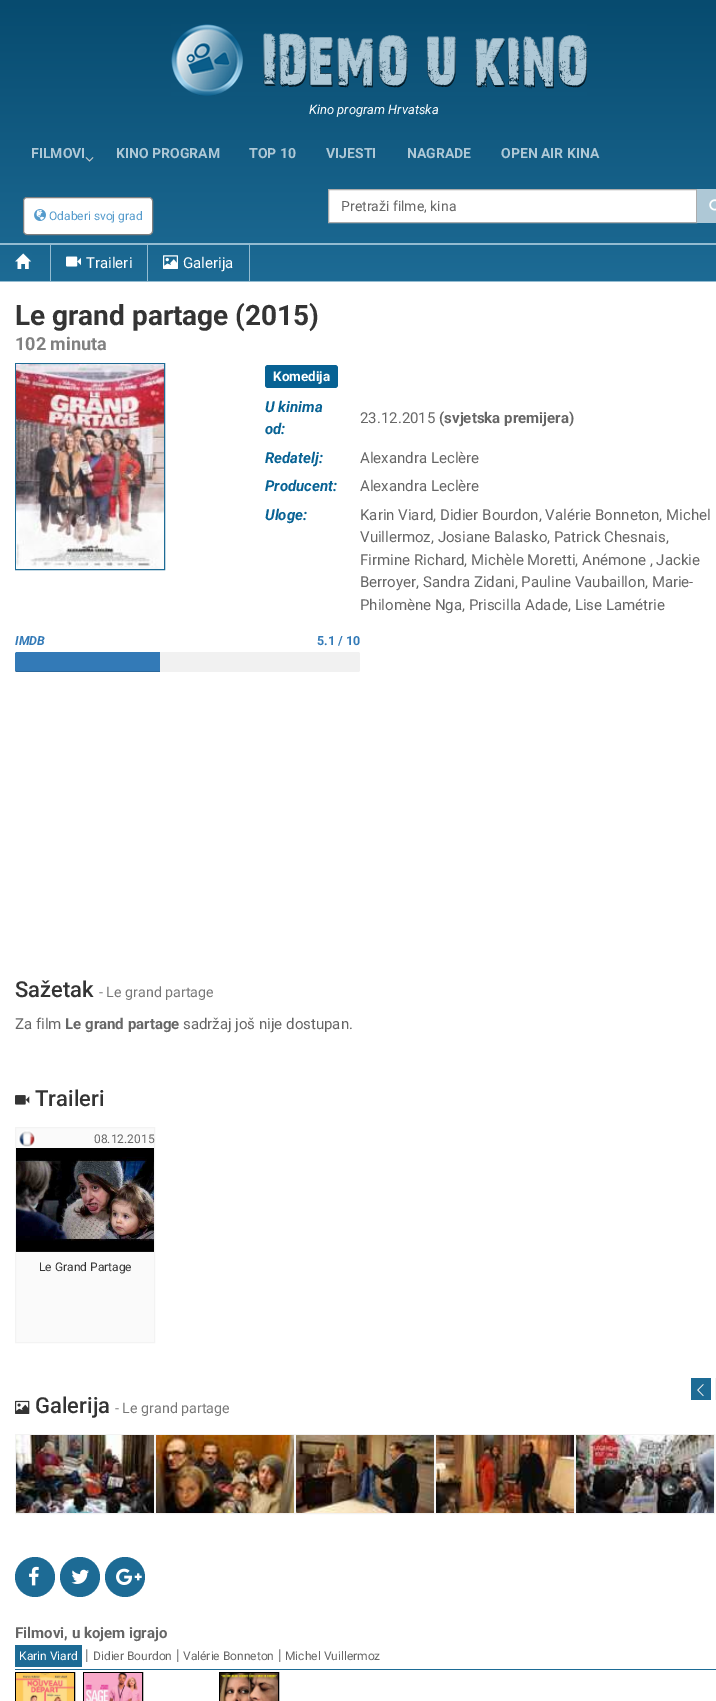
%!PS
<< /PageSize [716 1701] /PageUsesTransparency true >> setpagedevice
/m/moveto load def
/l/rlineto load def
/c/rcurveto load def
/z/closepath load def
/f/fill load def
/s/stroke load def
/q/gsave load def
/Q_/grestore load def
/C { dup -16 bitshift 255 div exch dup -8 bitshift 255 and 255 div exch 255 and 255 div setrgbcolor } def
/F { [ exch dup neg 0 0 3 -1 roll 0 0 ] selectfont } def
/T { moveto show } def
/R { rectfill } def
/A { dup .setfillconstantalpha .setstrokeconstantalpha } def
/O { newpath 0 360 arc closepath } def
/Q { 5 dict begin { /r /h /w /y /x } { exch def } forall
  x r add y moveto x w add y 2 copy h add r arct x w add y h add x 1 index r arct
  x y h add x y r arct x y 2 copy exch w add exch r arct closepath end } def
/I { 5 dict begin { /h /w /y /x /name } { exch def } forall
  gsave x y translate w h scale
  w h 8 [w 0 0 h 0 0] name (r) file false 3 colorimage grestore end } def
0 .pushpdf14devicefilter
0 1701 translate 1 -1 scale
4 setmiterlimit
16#FFFFFF C
0 0 716 1701 R
q 0 0 m 716 0 l 0 281 l -716 0 l z clip newpath
<< /ShadingType 2 /ColorSpace /DeviceRGB /Coords [375 0 375 281] /Extend [true true] /Function << /FunctionType 2 /Domain [0 1] /C0 [.027 .294 .435] /C1 [.114 .42 .584] /N 1 >> >> shfill Q_
16#94BCD1 C
0 281 716 1 R
(1.rgb) 171 24 416 72 I
/Roboto-Italic 13 F
16#FFFFFF C
(Kino program Hrvatska) 309 114 T
/Roboto-Bold 14 F
16#AEC8D6 C
(FILMOVI) 31 158 T
(2.rgb) 85 157 9 5 I
(KINO PROGRAM) 116 158 T
(TOP 10) 249 158 T
(VIJESTI) 326 158 T
(NAGRADE) 407 158 T
(OPEN AIR KINA) 501 158 T
16#FFFFFF C
328.5 189.5 m 368 0 l 0 33 l -368 0 l z q f Q_
16#ACACAC C
s
/Roboto-Regular 14 F
16#666666 C
(Pretraži filme, kina) 341 211 T
16#AEC8D6 C
697 189 19 34 R
(3.rgb) 709 199 7 12 I
16#FFFFFF C
23.5 197.5 129 37 3.5 Q q f Q_
16#808080 C
s
(4.rgb) 34 209 12 12 I
/Roboto-Regular 12 F
16#559BCC C
(Odaberi svoj grad) 49 220 T
16#94BCD1 C
0 243 716 2 R
50 245 1 36 R
(5.rgb) 15 253 17 16 I
147 245 1 36 R
(6.rgb) 66 256 15 11 I
/Roboto-Regular 15 F
16#FFFFFF C
(Traileri) 86 268 T
16#94BCD1 C
249 245 1 36 R
(7.rgb) 163 255 15 14 I
16#FFFFFF C
(Galerija) 183 268 T
/Roboto-Bold 28 F
16#343434 C
(Le grand partage \(2015\)) 15 325 T
/Roboto-Bold 18 F
16#808080 C
(102 minuta) 15 350 T
16#1D6B95 C
15.5 363.5 149 206 rectstroke
(8.rgb) 16 364 148 205 I
16#076294 C
265 365 73 23 3 Q f
/Roboto-Bold 13.5 F
16#FFFFFF C
(Komedija) 273 381 T
/Roboto-BoldItalic 15 F
16#076294 C
(U kinima) 265 412 T
(od:) 265 434 T
/Roboto-Regular 15 F
16#666666 C
(23.12.2015) 360 423 T
/Roboto-Bold 15 F
(\(svjetska premijera\)) 439 423 T
/Roboto-BoldItalic 15 F
16#076294 C
(Redatelj:) 265 463 T
/Roboto-Regular 15 F
16#666666 C
(Alexandra Leclère) 360 463 T
/Roboto-BoldItalic 15 F
16#076294 C
(Producent:) 265 491 T
/Roboto-Regular 15 F
16#666666 C
(Alexandra Leclère) 360 491 T
/Roboto-BoldItalic 15 F
16#076294 C
(Uloge:) 265 520 T
/Roboto-Regular 15 F
16#666666 C
(Karin Viard, Didier Bourdon, Valérie Bonneton, Michel) 360 520 T
(Vuillermoz, Josiane Balasko, Patrick Chesnais,) 360 542 T
(Firmine Richard, Michèle Moretti, Anémone , Jackie) 360 565 T
(Berroyer, Sandra Zidani, Pauline Vaubaillon, Marie-) 360 587 T
(Philomène Nga, Priscilla Adade, Lise Lamétrie) 360 610 T
/Roboto-BoldItalic 12.5 F
16#337AB7 C
(IMDB) 15 645 T
/Roboto-Bold 12.5 F
(5.1 / 10) 317 645 T
16#F1F1F1 C
15 652 345 20 2 Q f
16#337AB7 C
17 652 m 143 0 l 0 20 l -143 0 l -1 0 -2 -1 -2 -2 c 0 -16 l 0 -1 1 -2 2 -2 c z f
0.15 A
16#000000 C
15 671 145 1 R
/Roboto-Medium 22 F
1 A
16#343434 C
(Sažetak) 15 997 T
/Roboto-Regular 14.25 F
16#777777 C
(- Le grand partage) 99 997 T
/Roboto-Regular 15 F
16#666666 C
(Za film) 15 1029 T
/Roboto-Bold 15 F
(Le grand partage) 65 1029 T
/Roboto-Regular 15 F
(sadržaj još nije dostupan.) 183 1029 T
(9.rgb) 15 1095 15 10 I
/Roboto-Medium 22 F
16#343434 C
(Traileri) 35 1106 T
16#FAFAFA C
15.5 1127.5 m 139 0 l 0 215 l -139 0 l z q f Q_
16#F3F3F3 C
s
(10.rgb) 18 1130 18 18 I
/Roboto-Regular 12 F
16#666666 C
(08.12.2015) 94 1143 T
(11.rgb) 16 1148 138 104 I
16#343434 C
(Le Grand Partage) 39 1271 T
16#1D6B95 C
691 1378 20 22 R
(12.rgb) 697 1384 7 13 I
16#F1F1F1 C
715 1378 1 22 R
(13.rgb) 15 1400 15 14 I
/Roboto-Medium 22 F
16#343434 C
(Galerija) 35 1413 T
/Roboto-Regular 14.25 F
16#777777 C
(- Le grand partage) 115 1413 T
16#F3F3F3 C
15.5 1434.5 139 79 rectstroke
(14.rgb) 16 1435 138 78 I
155.5 1434.5 139 79 rectstroke
(15.rgb) 156 1435 138 78 I
295.5 1434.5 139 79 rectstroke
(16.rgb) 296 1435 138 78 I
435.5 1434.5 139 79 rectstroke
(17.rgb) 436 1435 138 78 I
575.5 1434.5 139 79 rectstroke
(18.rgb) 576 1435 138 78 I
16#1D6B95 C
35 1577 20 O f
(19.rgb) 29 1566 10 20 I
80 1577 20 O f
(20.rgb) 71 1569 18 15 I
125 1577 20 O f
(21.rgb) 116 1568 26 17 I
/Roboto-Bold 15 F
16#666666 C
(Filmovi, u kojem igrajo) 15 1638 T
16#1D6B95 C
15 1669 701 1 R
15 1645 67 22 R
/Roboto-Regular 12 F
16#FFFFFF C
(Karin Viard) 19 1660 T
/Roboto-Regular 15 F
16#666666 C
(|) 85 1660 T
/Roboto-Regular 12 F
(Didier Bourdon) 93 1660 T
/Roboto-Regular 15 F
(|) 176 1660 T
/Roboto-Regular 12 F
(Valérie Bonneton) 183 1660 T
/Roboto-Regular 15 F
(|) 278 1660 T
/Roboto-Regular 12 F
(Michel Vuillermoz) 285 1660 T
16#000000 C
15.5 1672.5 59 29 rectstroke
(22.rgb) 16 1673 58 28 I
83.5 1672.5 59 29 rectstroke
(23.rgb) 84 1673 58 28 I
219.5 1672.5 59 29 rectstroke
(24.rgb) 220 1673 58 28 I
.poppdf14devicefilter showpage
